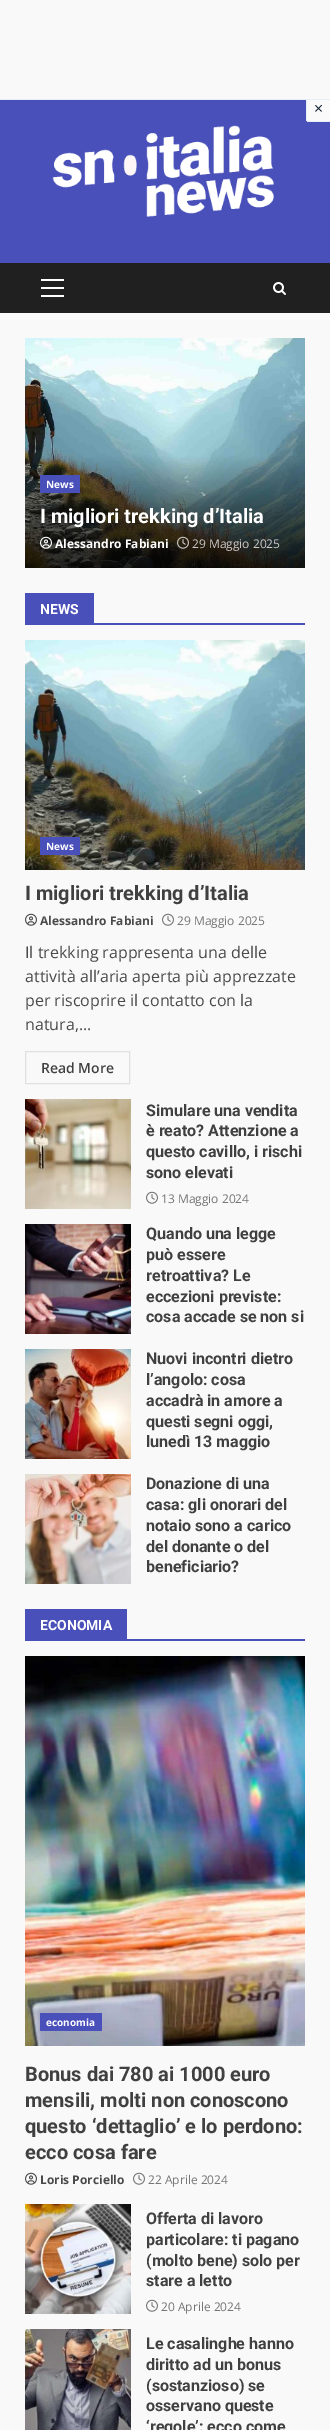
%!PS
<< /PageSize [330 2430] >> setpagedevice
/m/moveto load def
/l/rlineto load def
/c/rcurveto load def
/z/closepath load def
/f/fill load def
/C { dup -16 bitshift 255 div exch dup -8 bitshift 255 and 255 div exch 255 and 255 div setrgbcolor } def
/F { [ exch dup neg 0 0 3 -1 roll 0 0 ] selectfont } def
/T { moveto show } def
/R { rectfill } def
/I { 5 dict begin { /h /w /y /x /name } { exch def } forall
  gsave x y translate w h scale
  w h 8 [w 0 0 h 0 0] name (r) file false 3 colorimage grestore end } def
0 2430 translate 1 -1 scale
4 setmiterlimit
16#F9F9F9 C
0 0 330 2430 R
16#4950BA C
0 100 330 163 R
16#FAFAFA C
306 98 m 24 0 l 0 24 l -21 0 l -1.5 0 -3 -1.5 -3 -3 c z f
16#E8EEF9 C
306 98 m 24 0 l 0 24 l -21 0 l -1.5 0 -3 -1.5 -3 -3 c z 307 98 m 23 0 l 0 23 l -21 0 l -1 0 -2 -1 -2 -2 c z eofill
16#FAFAFA C
306 98 1 1 R
16#E8EEF9 C
0 99 330 1 R
/OpenSans-Regular 16 F
16#112233 C
(×) 314 114 T
(1.rgb) 52 125 222 92 I
16#202020 C
0 263 330 50 R
16#FFFFFF C
41 287 23 2 R
41 279 23 2 R
41 295 23 2 R
(2.rgb) 273 282 13 13 I
(3.rgb) 25 338 280 230 I
16#4950BA C
40 475 40 18 R
/OpenSans-Bold 10 F
16#FFFFFF C
(News) 46 488 T
/Roboto-Bold 20 F
(I migliori trekking d’Italia) 40 523 T
(4.rgb) 40 536 12 13 I
/OpenSans-Bold 12 F
(Alessandro Fabiani) 55 548 T
(5.rgb) 177 536 12 13 I
/OpenSans-Regular 12 F
16#C9C8C7 C
(29 Maggio 2025) 192 548 T
16#4950BA C
25 623 280 2 R
25 593 69 30 R
/Roboto-Bold 14 F
16#FFFFFF C
(NEWS) 40 614 T
(6.rgb) 25 640 280 230 I
16#4950BA C
40 837 40 18 R
/OpenSans-Bold 10 F
16#FFFFFF C
(News) 46 850 T
/Roboto-Bold 20 F
16#404040 C
(I migliori trekking d’Italia) 25 900 T
(7.rgb) 25 913 12 13 I
/OpenSans-Bold 12 F
16#4A4A4A C
(Alessandro Fabiani) 40 925 T
(8.rgb) 162 913 12 13 I
/OpenSans-Regular 12 F
16#767676 C
(29 Maggio 2025) 177 925 T
/OpenSans-Regular 16 F
16#4A4A4A C
(Il trekking rappresenta una delle) 25 958 T
(attività all’aria aperta più apprezzate) 25 982 T
(per riscoprire il contatto con la) 25 1006 T
(natura,...) 25 1030 T
16#E0E0E0 C
25.5 1051.5 104 32 rectstroke
/OpenSans-SemiBold 14 F
16#404040 C
(Read More) 41 1073 T
(9.rgb) 25 1099 106 110 I
/Roboto-Bold 16 F
(Simulare una vendita) 146 1116 T
(è reato? Attenzione a) 146 1136 T
(questo cavillo, i rischi) 146 1157 T
(sono elevati) 146 1178 T
(8.rgb) 146 1191 12 13 I
/OpenSans-Regular 12 F
16#767676 C
(13 Maggio 2024) 161 1203 T
(10.rgb) 25 1224 106 110 I
/Roboto-Bold 16 F
16#404040 C
(Quando una legge) 146 1239 T
(può essere) 146 1260 T
(retroattiva? Le) 146 1281 T
(eccezioni previste:) 146 1302 T
(cosa accade se non si) 146 1322 T
(11.rgb) 25 1349 106 110 I
(Nuovi incontri dietro) 146 1364 T
(l’angolo: cosa) 146 1385 T
(accadrà in amore a) 146 1406 T
(questi segni oggi,) 146 1427 T
(lunedì 13 maggio) 146 1447 T
(12.rgb) 25 1474 106 110 I
(Donazione di una) 146 1489 T
(casa: gli onorari del) 146 1510 T
(notaio sono a carico) 146 1531 T
(del donante o del) 146 1552 T
(beneficiario?) 146 1572 T
16#4950BA C
25 1639 280 2 R
25 1609 102 30 R
/Roboto-Bold 14 F
16#FFFFFF C
(ECONOMIA) 40 1630 T
(13.rgb) 25 1656 280 390 I
16#4950BA C
40 2013 62 18 R
/OpenSans-Bold 10 F
16#FFFFFF C
(economia) 46 2026 T
/Roboto-Bold 20 F
16#404040 C
(Bonus dai 780 ai 1000 euro) 25 2081 T
(mensili, molti non conoscono) 25 2107 T
(questo ‘dettaglio’ e lo perdono:) 25 2133 T
(ecco cosa fare) 25 2159 T
(7.rgb) 25 2172 12 13 I
/OpenSans-Bold 12 F
16#4A4A4A C
(Loris Porciello) 40 2184 T
(8.rgb) 133 2172 12 13 I
/OpenSans-Regular 12 F
16#767676 C
(22 Aprile 2024) 148 2184 T
(14.rgb) 25 2204 106 110 I
/Roboto-Bold 16 F
16#404040 C
(Offerta di lavoro) 146 2224 T
(particolare: ti pagano) 146 2245 T
(\(molto bene\) solo per) 146 2266 T
(stare a letto) 146 2286 T
(8.rgb) 146 2299 12 13 I
/OpenSans-Regular 12 F
16#767676 C
(20 Aprile 2024) 161 2311 T
(15.rgb) 25 2329 106 101 I
/Roboto-Bold 16 F
16#404040 C
(Le casalinghe hanno) 146 2349 T
(diritto ad un bonus) 146 2370 T
(\(sostanzioso\) se) 146 2391 T
(osservano queste) 146 2411 T
(‘regole’: ecco come) 146 2432 T
showpage
